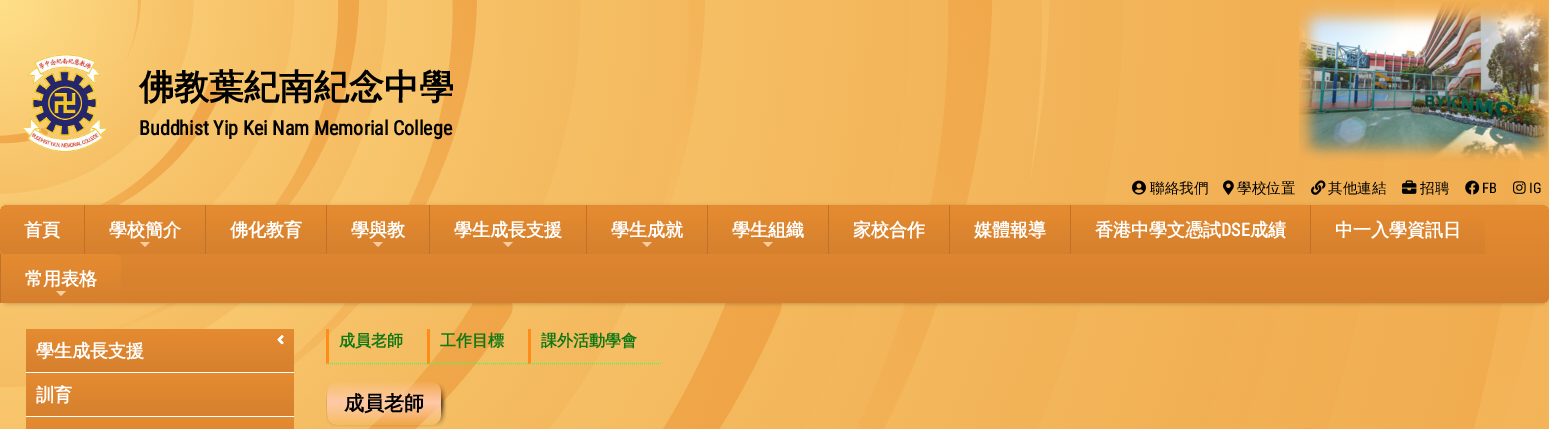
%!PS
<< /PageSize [1549 429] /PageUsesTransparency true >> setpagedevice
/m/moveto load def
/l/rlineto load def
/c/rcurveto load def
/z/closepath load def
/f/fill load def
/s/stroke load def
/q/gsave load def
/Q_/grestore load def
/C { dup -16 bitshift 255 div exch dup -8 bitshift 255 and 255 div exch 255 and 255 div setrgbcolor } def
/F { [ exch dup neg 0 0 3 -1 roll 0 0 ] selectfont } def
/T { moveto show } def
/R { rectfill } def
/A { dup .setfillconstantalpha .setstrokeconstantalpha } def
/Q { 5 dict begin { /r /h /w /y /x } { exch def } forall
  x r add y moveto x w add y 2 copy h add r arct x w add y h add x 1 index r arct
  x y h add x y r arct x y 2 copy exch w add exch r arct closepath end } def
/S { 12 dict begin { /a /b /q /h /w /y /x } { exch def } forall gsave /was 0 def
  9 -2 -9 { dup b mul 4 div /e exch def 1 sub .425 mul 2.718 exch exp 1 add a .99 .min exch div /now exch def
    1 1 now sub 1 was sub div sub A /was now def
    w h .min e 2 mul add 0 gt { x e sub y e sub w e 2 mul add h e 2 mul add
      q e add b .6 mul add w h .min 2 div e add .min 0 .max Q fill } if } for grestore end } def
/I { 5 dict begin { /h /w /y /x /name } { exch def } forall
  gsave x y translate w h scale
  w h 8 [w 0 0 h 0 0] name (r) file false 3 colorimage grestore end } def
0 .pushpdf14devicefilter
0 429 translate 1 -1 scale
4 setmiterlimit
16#FFFFFF C
0 0 1549 429 R
(1.rgb) 0 0 1549 429 I
(2.rgb) 21 54 88 99 I
/WenQuanYiZenHei-Bold 35 F
16#000000 C
(佛教葉紀南紀念中學) 139 99 T
/RobotoCondensed-Bold 20 F
(Buddhist Yip Kei Nam Memorial College) 139 135 T
(3.rgb) 1299 1 250 160 I
(4.rgb) 1132 180 14 15 I
/WenQuanYiZenHei-Medium 14.5 F
(聯絡我們) 1150 193 T
(5.rgb) 1223 180 11 15 I
(學校位置) 1237 193 T
(6.rgb) 1311 180 15 15 I
(其他連結) 1328 193 T
(7.rgb) 1402 180 15 14 I
(招聘) 1420 193 T
(8.rgb) 1465 180 15 15 I
/RobotoCondensed-Regular 14.5 F
(FB) 1482 193 T
(9.rgb) 1513 181 13 13 I
(IG) 1529 193 T
0 206 1549 98 8 2 .2 S
q 0 205 1549 98 8 Q clip newpath
<< /ShadingType 2 /ColorSpace /DeviceRGB /Coords [775 205 775 303] /Extend [true true] /Function << /FunctionType 2 /Domain [0 1] /C0 [.898 .545 .192] /C1 [.839 .502 .18] /N 1 >> >> shfill Q_
q 8 205 m 76 0 l 0 49 l -76 0 l -4.5 0 -8 -3.5 -8 -8 c 0 -33 l 0 -4.5 3.5 -8 8 -8 c z clip newpath
<< /ShadingType 2 /ColorSpace /DeviceRGB /Coords [42 205 42 254] /Extend [true true] /Function << /FunctionType 2 /Domain [0 1] /C0 [.898 .545 .192] /C1 [.839 .502 .18] /N 1 >> >> shfill Q_
/WenQuanYiZenHei-Bold 18 F
16#FFFFFF C
(首頁) 24 236 T
16#C07229 C
84 205 1 49 R
q 85 220 m 120 0 l 0 34 l -120 0 l z clip newpath
<< /ShadingType 2 /ColorSpace /DeviceRGB /Coords [145 205 145 254] /Extend [true true] /Function << /FunctionType 2 /Domain [0 1] /C0 [.898 .545 .192] /C1 [.839 .502 .18] /N 1 >> >> shfill Q_
16#FFFFFF C
(學校簡介) 109 236 T
16#FFCBA1 C
140 242 m 10 0 l -5 5 l z f
16#C07229 C
205 205 1 49 R
q 206 220 m 120 0 l 0 34 l -120 0 l z clip newpath
<< /ShadingType 2 /ColorSpace /DeviceRGB /Coords [266 205 266 254] /Extend [true true] /Function << /FunctionType 2 /Domain [0 1] /C0 [.898 .545 .192] /C1 [.839 .502 .18] /N 1 >> >> shfill Q_
16#FFFFFF C
(佛化教育) 230 236 T
16#C07229 C
326 205 1 49 R
q 327 220 m 102 0 l 0 34 l -102 0 l z clip newpath
<< /ShadingType 2 /ColorSpace /DeviceRGB /Coords [378 205 378 254] /Extend [true true] /Function << /FunctionType 2 /Domain [0 1] /C0 [.898 .545 .192] /C1 [.839 .502 .18] /N 1 >> >> shfill Q_
16#FFFFFF C
(學與教) 351 236 T
16#FFCBA1 C
373 242 m 10 0 l -5 5 l z f
16#C07229 C
429 205 1 49 R
q 430 220 m 156 0 l 0 34 l -156 0 l z clip newpath
<< /ShadingType 2 /ColorSpace /DeviceRGB /Coords [508 205 508 254] /Extend [true true] /Function << /FunctionType 2 /Domain [0 1] /C0 [.898 .545 .192] /C1 [.839 .502 .18] /N 1 >> >> shfill Q_
16#FFFFFF C
(學生成長支援) 454 236 T
16#FFCBA1 C
503 242 m 10 0 l -5 5 l z f
16#C07229 C
586 205 1 49 R
q 587 220 m 120 0 l 0 34 l -120 0 l z clip newpath
<< /ShadingType 2 /ColorSpace /DeviceRGB /Coords [647 205 647 254] /Extend [true true] /Function << /FunctionType 2 /Domain [0 1] /C0 [.898 .545 .192] /C1 [.839 .502 .18] /N 1 >> >> shfill Q_
16#FFFFFF C
(學生成就) 611 236 T
16#FFCBA1 C
642 242 m 10 0 l -5 5 l z f
16#C07229 C
707 205 1 49 R
q 708 220 m 120 0 l 0 34 l -120 0 l z clip newpath
<< /ShadingType 2 /ColorSpace /DeviceRGB /Coords [768 205 768 254] /Extend [true true] /Function << /FunctionType 2 /Domain [0 1] /C0 [.898 .545 .192] /C1 [.839 .502 .18] /N 1 >> >> shfill Q_
16#FFFFFF C
(學生組織) 732 236 T
16#FFCBA1 C
763 242 m 10 0 l -5 5 l z f
16#C07229 C
828 205 1 49 R
q 829 220 m 120 0 l 0 34 l -120 0 l z clip newpath
<< /ShadingType 2 /ColorSpace /DeviceRGB /Coords [889 205 889 254] /Extend [true true] /Function << /FunctionType 2 /Domain [0 1] /C0 [.898 .545 .192] /C1 [.839 .502 .18] /N 1 >> >> shfill Q_
16#FFFFFF C
(家校合作) 853 236 T
16#C07229 C
949 205 1 49 R
q 950 220 m 120 0 l 0 34 l -120 0 l z clip newpath
<< /ShadingType 2 /ColorSpace /DeviceRGB /Coords [1010 205 1010 254] /Extend [true true] /Function << /FunctionType 2 /Domain [0 1] /C0 [.898 .545 .192] /C1 [.839 .502 .18] /N 1 >> >> shfill Q_
16#FFFFFF C
(媒體報導) 974 236 T
16#C07229 C
1070 205 1 49 R
q 1071 220 m 239 0 l 0 34 l -239 0 l z clip newpath
<< /ShadingType 2 /ColorSpace /DeviceRGB /Coords [1191 205 1191 254] /Extend [true true] /Function << /FunctionType 2 /Domain [0 1] /C0 [.898 .545 .192] /C1 [.839 .502 .18] /N 1 >> >> shfill Q_
16#FFFFFF C
(香港中學文憑試) 1095 236 T
/RobotoCondensed-Bold 18 F
(DSE) 1221 236 T
/WenQuanYiZenHei-Bold 18 F
(成績) 1250 236 T
16#C07229 C
1310 205 1 49 R
q 1311 220 m 174 0 l 0 34 l -174 0 l z clip newpath
<< /ShadingType 2 /ColorSpace /DeviceRGB /Coords [1398 205 1398 254] /Extend [true true] /Function << /FunctionType 2 /Domain [0 1] /C0 [.898 .545 .192] /C1 [.839 .502 .18] /N 1 >> >> shfill Q_
16#FFFFFF C
(中一入學資訊日) 1335 236 T
16#C07229 C
0 254 1 49 R
q 1 254 m 112 0 l 4.5 0 8 3.5 8 8 c 0 33 l 0 4.5 -3.5 8 -8 8 c -112 0 l z clip newpath
<< /ShadingType 2 /ColorSpace /DeviceRGB /Coords [61 254 61 303] /Extend [true true] /Function << /FunctionType 2 /Domain [0 1] /C0 [.898 .545 .192] /C1 [.839 .502 .18] /N 1 >> >> shfill Q_
16#FFFFFF C
(常用表格) 25 285 T
16#FFCBA1 C
56 291 m 10 0 l -5 5 l z f
q 26 329 m 268 0 l 0 43 l -268 0 l z clip newpath
<< /ShadingType 2 /ColorSpace /DeviceRGB /Coords [160 329 160 372] /Extend [true true] /Function << /FunctionType 2 /Domain [0 1] /C0 [.898 .545 .192] /C1 [.839 .502 .18] /N 1 >> >> shfill Q_
(13.rgb) 277 335 7 10 I
(10.rgb) 277 335 7 10 I
(11.rgb) 277 335 7 10 I
(12.rgb) 277 335 7 10 I
16#FFFFFF C
26 372 268 1 R
(學生成長支援) 36 357 T
q 26 373 m 268 0 l 0 43 l -268 0 l z clip newpath
<< /ShadingType 2 /ColorSpace /DeviceRGB /Coords [160 373 160 416] /Extend [true true] /Function << /FunctionType 2 /Domain [0 1] /C0 [.898 .545 .192] /C1 [.839 .502 .18] /N 1 >> >> shfill Q_
26 416 268 1 R
(訓育) 36 401 T
q 26 417 m 268 0 l 0 12 l -268 0 l z clip newpath
<< /ShadingType 2 /ColorSpace /DeviceRGB /Coords [160 417 160 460] /Extend [true true] /Function << /FunctionType 2 /Domain [0 1] /C0 [.898 .545 .192] /C1 [.839 .502 .18] /N 1 >> >> shfill Q_
16#38FF53 C
[1 1] 0 setdash
326 363.5 m 101 0 l s
16#FF8C19 C
326 364 m 0 -35 l 3 0 l 0 34 l z f
/WenQuanYiZenHei-Bold 16 F
16#117814 C
(成員老師) 339 346 T
16#38FF53 C
427 363.5 m 101 0 l s
16#FF8C19 C
427 364 m 0 -35 l 3 0 l 0 34 l z f
16#117814 C
(工作目標) 440 346 T
16#38FF53 C
528 363.5 m 133 0 l s
16#FF8C19 C
528 364 m 0 -35 l 3 0 l 0 34 l z f
16#117814 C
(課外活動學會) 541 346 T
(14.rgb) 326 382 18 45 I
(15.rgb) 344 382 80 45 I
/WenQuanYiZenHei-Bold 20 F
16#000000 C
(成員老師) 344 410 T
(16.rgb) 424 382 23 45 I
.poppdf14devicefilter showpage
